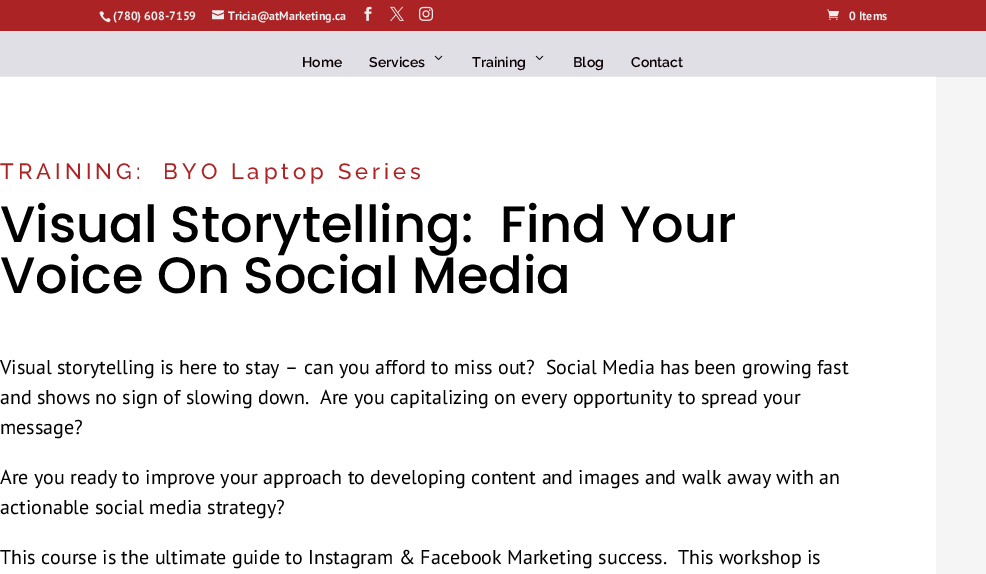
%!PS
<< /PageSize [986 574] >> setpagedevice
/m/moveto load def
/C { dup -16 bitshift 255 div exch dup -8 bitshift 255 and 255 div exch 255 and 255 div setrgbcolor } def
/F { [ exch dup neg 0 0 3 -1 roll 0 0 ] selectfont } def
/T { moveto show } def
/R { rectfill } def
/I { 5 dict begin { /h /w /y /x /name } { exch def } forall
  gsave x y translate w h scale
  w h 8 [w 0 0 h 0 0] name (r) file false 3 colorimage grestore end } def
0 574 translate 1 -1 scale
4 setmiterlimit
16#FFFFFF C
0 0 986 574 R
16#E6E6E6 C
0 76 936 1 R
16#AC2325 C
0 0 986 31 R
(1.rgb) 99 11 12 12 I
/PTSans-Bold 12 F
16#EEEEEE C
(\(780\) 608-7159) 113 20 T
(2.rgb) 212 10 12 10 I
(Tricia@atMarketing.ca) 228 20 T
(3.rgb) 364 6 8 15 I
(4.rgb) 390 6 14 15 I
(5.rgb) 419 6 14 15 I
(6.rgb) 827 9 12 11 I
(0 Items) 849 20 T
16#E0DFE5 C
0 31 986 45 R
/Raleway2-Thin 14 F
16#0A0002 C
(Home) 302 67 T
(Services) 369 67 T
(7.rgb) 434 55 9 5 I
(Training) 472 67 T
(7.rgb) 535 55 9 5 I
(Blog) 573 67 T
(Contact) 631 67 T
/Raleway-Thin 22 F
16#AC2425 C
0 179 m 4 0 (TRAINING:  BYO Laptop Series) ashow
/Poppins-Medium 51 F
16#000000 C
(Visual Storytelling:  Find Your) 0 242 T
(Voice On Social Media) 0 293 T
/PTSans-Regular 20 F
(Visual storytelling is here to stay – can you afford to miss out?  Social Media has been growing fast) 0 374 T
(and shows no sign of slowing down.  Are you capitalizing on every opportunity to spread your) 0 404 T
(message?) 0 434 T
(Are you ready to improve your approach to developing content and images and walk away with an) 0 484 T
(actionable social media strategy?) 0 514 T
(This course is the ultimate guide to Instagram & Facebook Marketing success.  This workshop is) 0 564 T
16#F5F5F5 C
936 77 50 497 R
16#DDDDDD C
936 76 50 1 R
showpage
